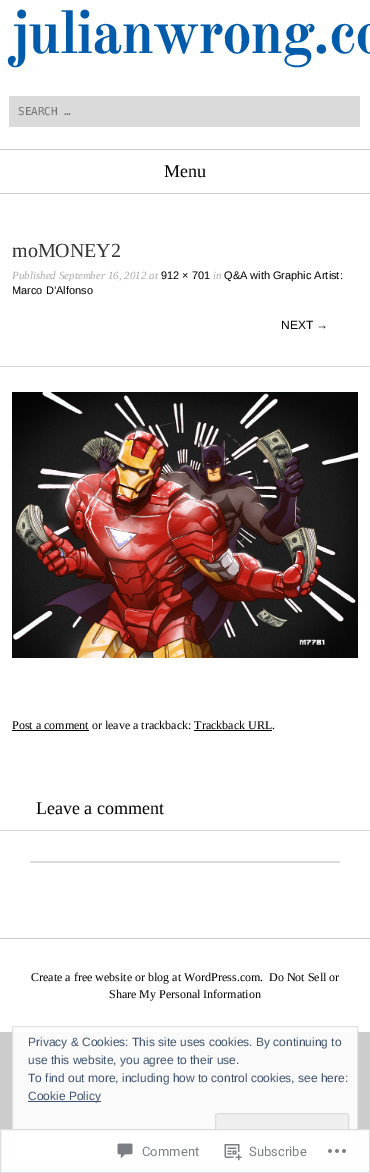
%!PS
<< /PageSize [370 1173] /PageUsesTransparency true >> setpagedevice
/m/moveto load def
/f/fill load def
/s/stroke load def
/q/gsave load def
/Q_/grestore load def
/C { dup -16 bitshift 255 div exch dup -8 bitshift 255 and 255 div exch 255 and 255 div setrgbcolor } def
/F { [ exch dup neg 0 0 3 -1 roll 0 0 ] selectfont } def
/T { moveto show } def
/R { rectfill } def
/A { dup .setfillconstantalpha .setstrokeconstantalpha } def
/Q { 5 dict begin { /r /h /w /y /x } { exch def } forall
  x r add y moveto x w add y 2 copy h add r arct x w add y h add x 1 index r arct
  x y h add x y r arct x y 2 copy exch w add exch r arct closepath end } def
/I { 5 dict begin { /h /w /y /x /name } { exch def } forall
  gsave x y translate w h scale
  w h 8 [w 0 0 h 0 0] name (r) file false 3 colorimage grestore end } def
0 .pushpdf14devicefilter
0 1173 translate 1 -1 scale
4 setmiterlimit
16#CCCCCC C
0 0 370 1173 R
16#FAFAFA C
12 1032 346 129 R
16#FFFFFF C
0 0 370 1032 R
/OldStandardTT-Bold 60 F
16#005CAB C
11 53 m -1.75 0 (julianwrong.co) ashow
16#DADADA C
9 96 351 31 R
/DejaVuSansMono-Regular 11 F
16#757575 C
(SEARCH …) 18 115 T
16#CCCCCC C
0 149 370 1 R
0 193 370 1 R
/LiberationSerif-Regular 18 F
16#000000 C
(Menu) 164 177 T
16#D9D9D9 C
0 366 370 1 R
/LiberationSerif-Regular 20 F
16#333333 C
(moMONEY2) 12 257 T
/LiberationSerif-Italic 11 F
16#AAA9A9 C
(Published September 16, 2012 at) 12 279 T
/LiberationSans-Regular 11 F
16#000000 C
(912 × 701) 161 279 T
/LiberationSerif-Italic 11 F
16#AAA9A9 C
(in) 213 279 T
/LiberationSans-Regular 11 F
16#000000 C
(Q&A with Graphic Artist:) 224 279 T
(Marco D’Alfonso) 12 294 T
/LiberationSans-Regular 12 F
(NEXT →) 281 329 T
(1.rgb) 12 392 346 266 I
/LiberationSerif-Regular 12 F
(Post a comment or leave a trackback: Trackback URL.) 12 729 T
12 730 77 1 R
194 730 78 1 R
16#D9D9D9 C
0 830 370 1 R
/LiberationSerif-Regular 18 F
16#000000 C
(Leave a comment) 36 814 T
16#DCDCDE C
30 861 310 2 R
16#CCCCCC C
0 938 370 1 R
/LiberationSerif-Regular 12 F
16#000000 C
(Create a free website or blog at WordPress.com.) 31 981 T
(Do Not Sell or) 269 981 T
(Share My Personal Information) 109 998 T
0.9 A
16#DEDEDE C
12.5 1026.5 345 134 rectstroke
/LiberationSans-Regular 12 F
1 A
16#3E5271 C
(Privacy & Cookies: This site uses cookies. By continuing to) 28 1046 T
(use this website, you agree to their use.) 28 1064 T
(To find out more, including how to control cookies, see here:) 28 1082 T
28 1101 73 1 R
(Cookie Policy) 28 1100 T
16#EFEFEF C
215.5 1113.5 133 38 2.5 Q q f Q_
16#DCDCDC C
s
0.98 A
16#FFFFFF C
0 1129 370 44 R
16#DCDCDE C
.5 1129.5 369 43 rectstroke
1 A
(2.rgb) 117 1143 16 16 I
/Roboto-Regular 13 F
16#7B7F84 C
(Comment) 142 1156 T
(3.rgb) 224 1144 18 17 I
(Subscribe) 249 1156 T
(4.rgb) 328 1149 18 4 I
.poppdf14devicefilter showpage
